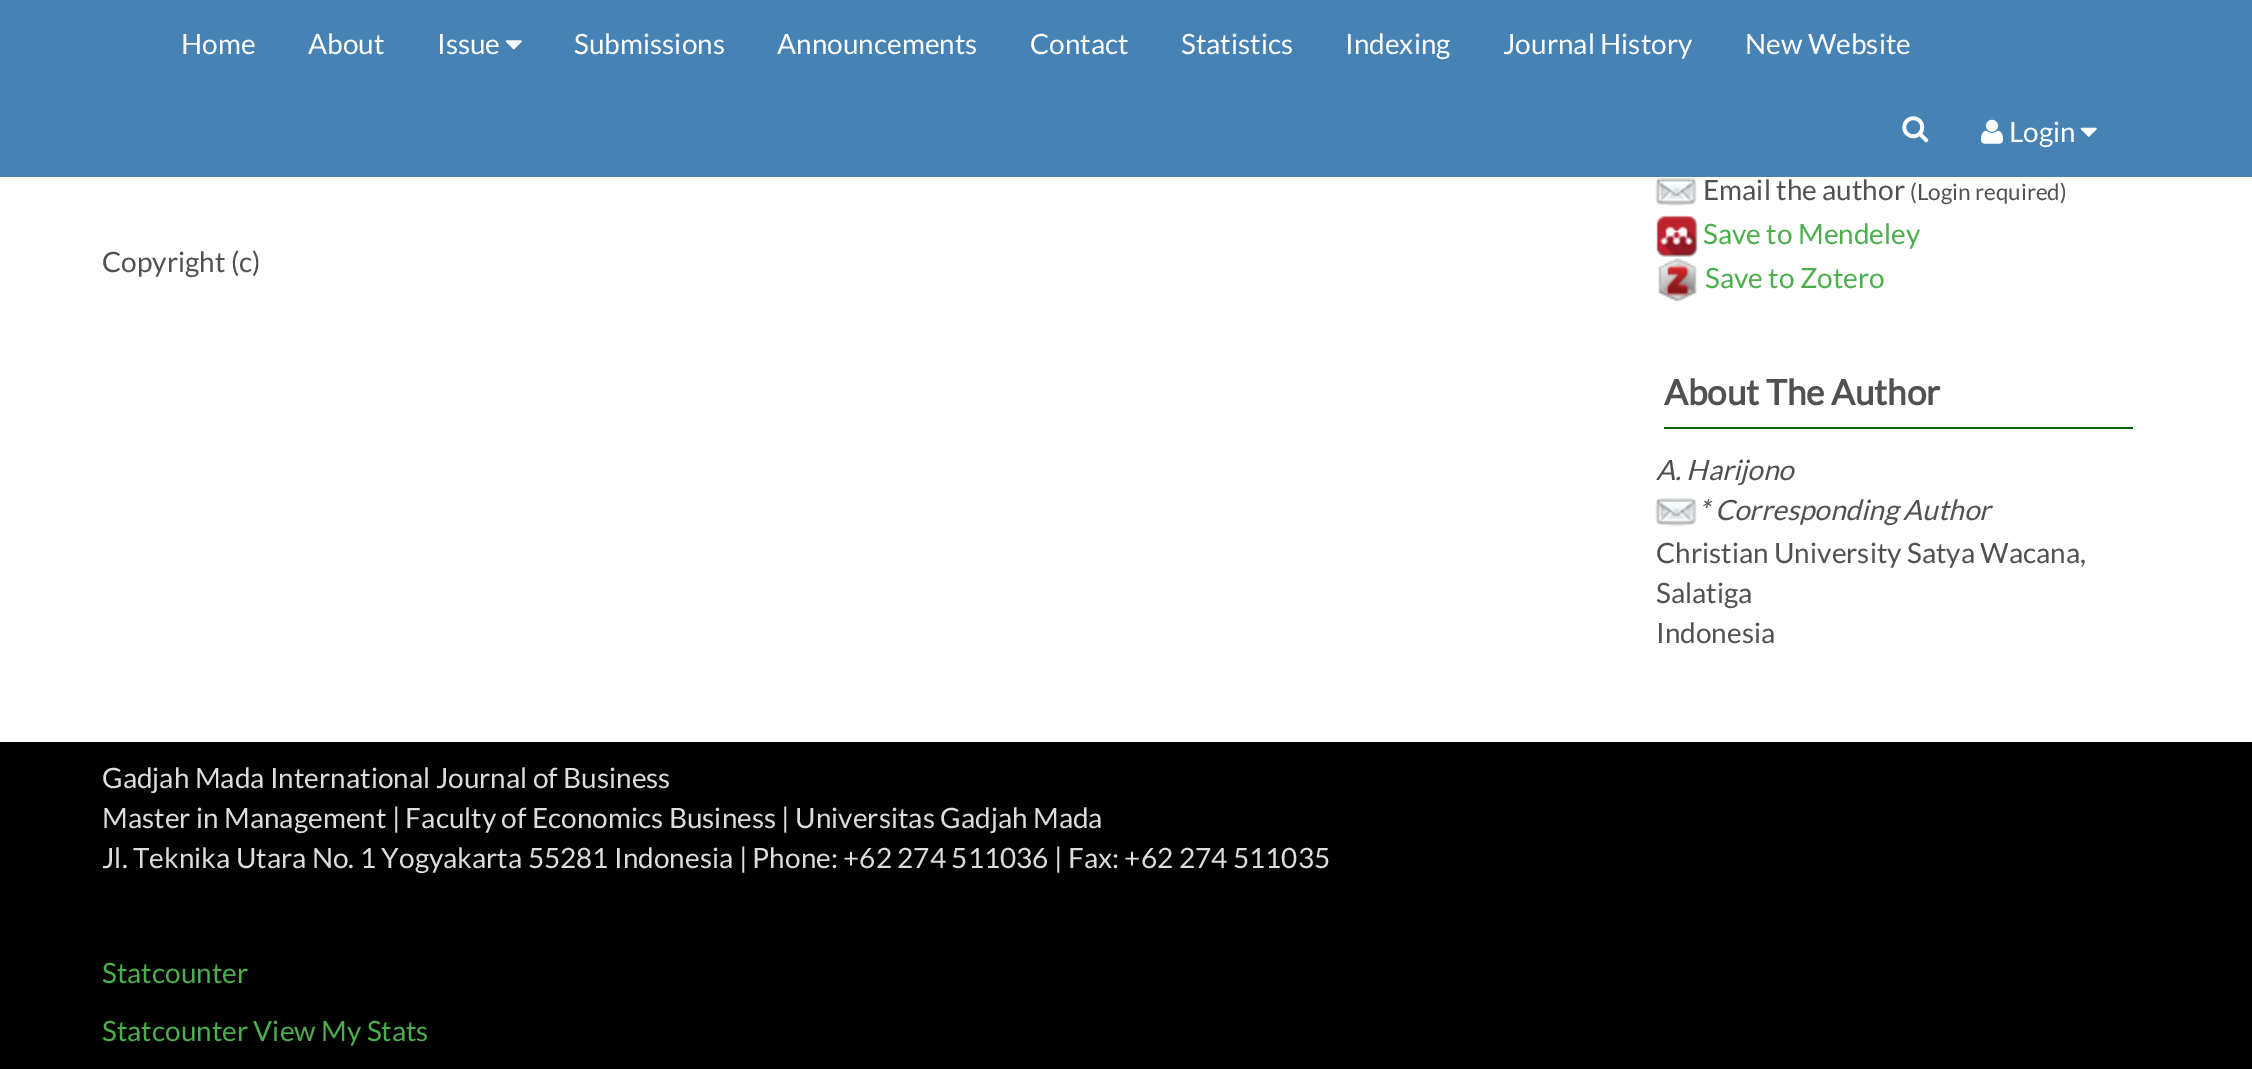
%!PS
<< /PageSize [2252 1069] >> setpagedevice
/C { dup -16 bitshift 255 div exch dup -8 bitshift 255 and 255 div exch 255 and 255 div setrgbcolor } def
/F { [ exch dup neg 0 0 3 -1 roll 0 0 ] selectfont } def
/T { moveto show } def
/R { rectfill } def
/I { 5 dict begin { /h /w /y /x /name } { exch def } forall
  gsave x y translate w h scale
  w h 8 [w 0 0 h 0 0] name (r) file false 3 colorimage grestore end } def
0 1069 translate 1 -1 scale
4 setmiterlimit
16#FFFFFF C
0 0 2252 1069 R
16#4682B4 C
0 0 2252 177 R
/Lato-Regular 28 F
16#FFFFFF C
(Home) 181 54 T
(About) 308 54 T
(Issue) 437 54 T
(1.rgb) 505 40 17 10 I
(Submissions) 574 54 T
(Announcements) 777 54 T
(Contact) 1030 54 T
(Statistics) 1181 54 T
(Indexing) 1345 54 T
(Journal History) 1503 54 T
(New Website) 1745 54 T
(2.rgb) 1902 116 27 27 I
(3.rgb) 1981 119 22 25 I
(Login) 2009 142 T
(4.rgb) 2080 127 17 10 I
16#515151 C
(Copyright \(c\)) 102 272 T
(5.rgb) 1655 177 42 29 I
(Email the author) 1703 200 T
/Lato-Regular 22.5 F
(\(Login required\)) 1910 200 T
(6.rgb) 1656 215 42 42 I
/Lato-Regular 28 F
16#4CAE4C C
(Save to Mendeley) 1703 244 T
(7.rgb) 1658 258 39 44 I
(Save to Zotero) 1705 288 T
16#0A5F0A C
1664 427 469 2 R
/Lato-Bold 35 F
16#515151 C
(About The Author) 1664 405 T
/Lato-Italic 28 F
(A. Harijono) 1656 480 T
(8.rgb) 1655 498 42 29 I
(* Corresponding Author) 1698 520 T
/Lato-Regular 28 F
(Christian University Satya Wacana,) 1656 563 T
(Salatiga) 1656 603 T
(Indonesia) 1656 643 T
16#000000 C
0 742 2252 327 R
16#DDDDDD C
(Gadjah Mada International Journal of Business) 102 788 T
(Master in Management | Faculty of Economics Business | Universitas Gadjah Mada) 102 828 T
(Jl. Teknika Utara No. 1 Yogyakarta 55281 Indonesia | Phone: +62 274 511036 | Fax: +62 274 511035) 102 868 T
16#4CAE4C C
(Statcounter) 102 983 T
(Statcounter View My Stats) 102 1041 T
showpage
